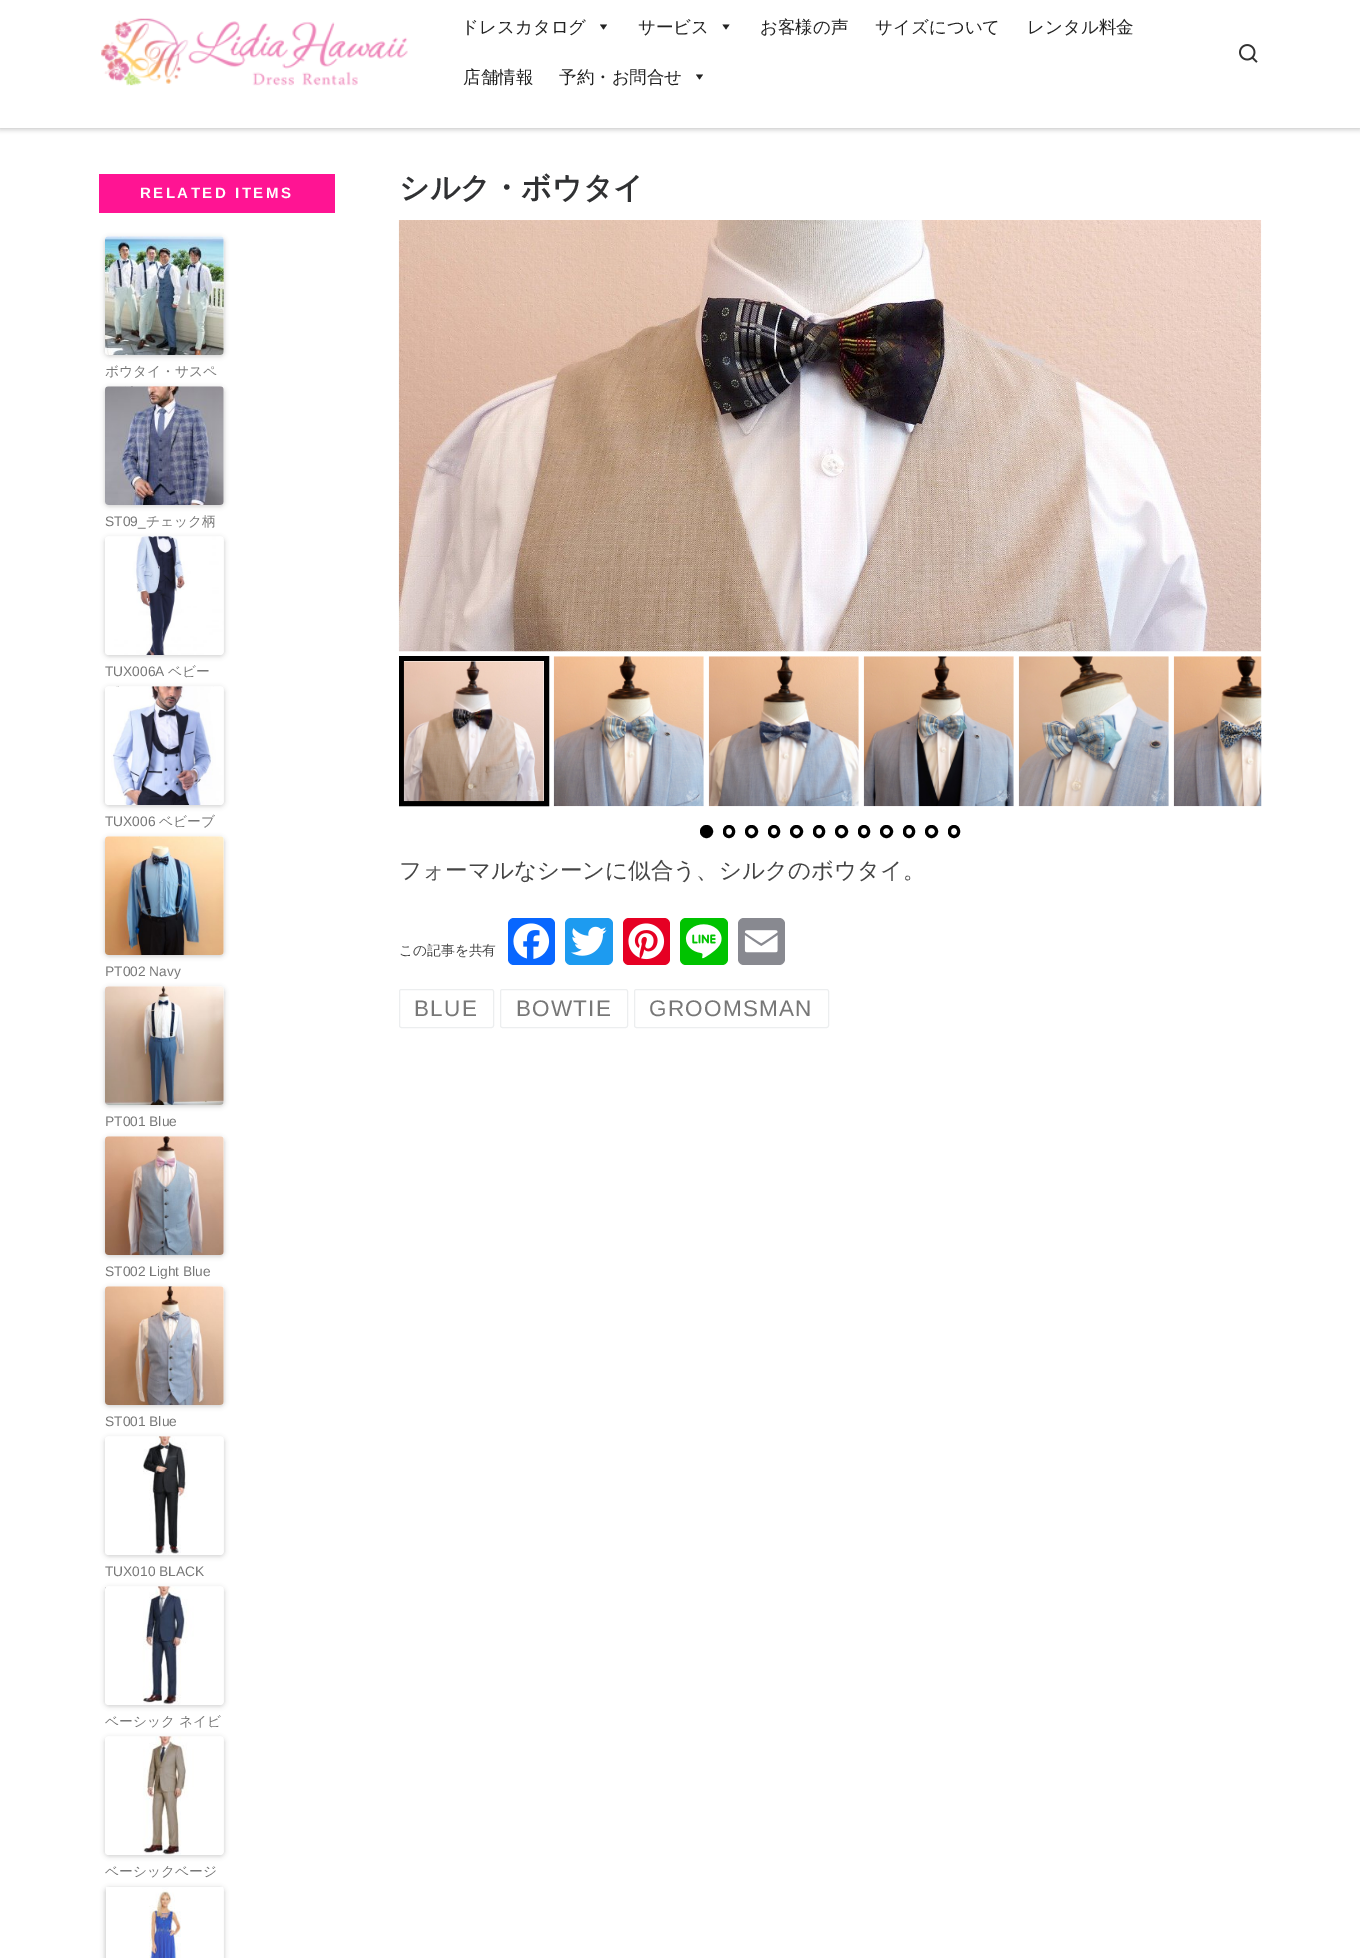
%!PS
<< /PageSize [1360 1958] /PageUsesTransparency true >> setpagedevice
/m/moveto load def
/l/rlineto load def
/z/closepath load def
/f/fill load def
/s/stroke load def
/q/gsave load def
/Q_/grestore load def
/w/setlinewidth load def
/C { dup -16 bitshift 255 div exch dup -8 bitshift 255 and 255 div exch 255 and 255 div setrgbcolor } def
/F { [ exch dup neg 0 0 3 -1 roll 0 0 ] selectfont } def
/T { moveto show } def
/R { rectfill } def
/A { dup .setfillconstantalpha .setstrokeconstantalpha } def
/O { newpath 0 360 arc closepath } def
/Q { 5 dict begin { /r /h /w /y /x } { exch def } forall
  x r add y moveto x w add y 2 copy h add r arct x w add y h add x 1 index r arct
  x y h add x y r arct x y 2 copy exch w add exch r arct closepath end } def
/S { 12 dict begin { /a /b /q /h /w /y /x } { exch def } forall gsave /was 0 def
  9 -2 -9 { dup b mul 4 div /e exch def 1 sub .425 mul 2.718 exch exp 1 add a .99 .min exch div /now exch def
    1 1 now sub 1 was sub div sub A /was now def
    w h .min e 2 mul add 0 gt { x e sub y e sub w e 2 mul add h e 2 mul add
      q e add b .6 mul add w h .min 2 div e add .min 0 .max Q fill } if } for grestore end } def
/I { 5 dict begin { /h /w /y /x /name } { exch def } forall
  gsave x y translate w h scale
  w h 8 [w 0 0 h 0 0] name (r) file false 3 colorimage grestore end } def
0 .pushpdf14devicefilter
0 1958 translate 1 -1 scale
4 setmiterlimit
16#FFFFFF C
0 0 1360 1958 R
16#666666 C
0 -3 1360 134 0 1 .08 S
16#EFEFEF C
0 128 1360 1 R
16#000000 C
0 -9 1360 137 0 3 .2 S
16#FFFFFF C
0 0 1360 128 R
(1.rgb) 101 18 307 68 I
/WenQuanYiZenHei-Medium 17.5 F
16#222222 C
(ドレスカタログ) 461 33 T
607 24.5 m -3.5 5 l -3.5 -5 l z f
(サービス) 638 33 T
729.5 24.5 m -3.5 5 l -3.5 -5 l z f
(お客様の声) 760 33 T
(サイズについて) 875 33 T
(レンタル料金) 1027 33 T
(店舗情報) 463 83 T
(予約・お問合せ) 559 83 T
703 74.5 m -3.5 5 l -3.5 -5 l z f
(2.rgb) 1239 44 19 19 I
16#FF1493 C
99 174 236 39 R
/LiberationSans-Bold 15 F
16#FFFFFF C
140 198 m 2.5 0 (RELATED ITEMS) ashow
16#000000 C
105 238 119 118 4 2.5 .2 S
(3.rgb) 105 236 119 119 I
/WenQuanYiZenHei-Medium 13.75 F
16#777777 C
(ボウタイ・サスペ) 105 376 T
16#000000 C
105 388 119 118 4 2.5 .2 S
(4.rgb) 105 386 119 119 I
/LiberationSans-Regular 13.75 F
16#777777 C
(ST09_) 105 526 T
/WenQuanYiZenHei-Medium 13.75 F
(チェック柄) 146 526 T
16#000000 C
105 538 119 118 4 2.5 .2 S
(5.rgb) 105 536 119 119 I
/LiberationSans-Regular 13.75 F
16#777777 C
(TUX006A) 105 676 T
/WenQuanYiZenHei-Medium 13.75 F
(ベビー) 168 676 T
16#000000 C
105 688 119 118 4 2.5 .2 S
(6.rgb) 105 686 119 119 I
/LiberationSans-Regular 13.75 F
16#777777 C
(TUX006) 105 826 T
/WenQuanYiZenHei-Medium 13.75 F
(ベビーブ) 159 826 T
16#000000 C
105 838 119 118 4 2.5 .2 S
(7.rgb) 105 836 119 119 I
/LiberationSans-Regular 13.75 F
16#777777 C
(PT002 Navy) 105 976 T
16#000000 C
105 988 119 118 4 2.5 .2 S
(8.rgb) 105 986 119 119 I
16#777777 C
(PT001 Blue) 105 1126 T
16#000000 C
105 1138 119 118 4 2.5 .2 S
(9.rgb) 105 1136 119 119 I
16#777777 C
(ST002 Light Blue) 105 1276 T
16#000000 C
105 1288 119 118 4 2.5 .2 S
(10.rgb) 105 1286 119 119 I
16#777777 C
(ST001 Blue) 105 1426 T
16#000000 C
105 1438 119 118 4 2.5 .2 S
(11.rgb) 105 1436 119 119 I
16#777777 C
(TUX010 BLACK) 105 1576 T
16#000000 C
105 1588 119 118 4 2.5 .2 S
(12.rgb) 105 1586 119 119 I
/WenQuanYiZenHei-Medium 13.75 F
16#777777 C
(ベーシック ネイビ) 105 1726 T
16#000000 C
105 1738 119 118 4 2.5 .2 S
(13.rgb) 105 1736 119 119 I
16#777777 C
(ベーシックベージ) 105 1876 T
16#000000 C
105 1888 119 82 4 2.5 .2 S
(14.rgb) 106 1887 118 71 I
/WenQuanYiZenHei-Bold 30 F
16#303133 C
(シルク・ボウタイ) 399 198 T
(15.rgb) 398 220 864 432 I
16#000000 C
5 w
401.5 658.5 145 145 rectstroke
(16.rgb) 403 661 141 141 I
(17.rgb) 553 656 151 151 I
(18.rgb) 708 656 151 151 I
(19.rgb) 863 656 151 151 I
(20.rgb) 1018 656 151 151 I
(21.rgb) 1173 656 89 151 I
706.5 831.5 5 O q f Q_
3 w
s
724.5 826.5 9 10 4.5 Q s
751.5 831.5 5 O s
769.5 826.5 9 10 4.5 Q s
796.5 831.5 5 O s
814.5 826.5 9 10 4.5 Q s
841.5 831.5 5 O s
859.5 826.5 9 10 4.5 Q s
886.5 831.5 5 O s
904.5 826.5 9 10 4.5 Q s
931.5 831.5 5 O s
949.5 826.5 9 10 4.5 Q s
/WenQuanYiZenHei-Medium 22.5 F
16#444444 C
(フォーマルなシーンに似合う、シルクのボウタイ。) 399 878 T
/WenQuanYiZenHei-Medium 13.75 F
(この記事を共有) 399 955 T
16#0866FF C
508 918 47 47 6 Q f
(22.rgb) 513 923 37 36 I
16#1D9BF0 C
565 918 48 47 6 Q f
(23.rgb) 571 926 36 30 I
16#E60023 C
623 918 47 47 6 Q f
(24.rgb) 628 923 37 37 I
16#00C300 C
680 918 48 47 6 Q f
(25.rgb) 685 924 37 35 I
16#888990 C
738 918 47 47 6 Q f
(26.rgb) 744 930 34 23 I
16#ECEEEF C
1 w
399.5 989.5 94 38 2 Q s
/LiberationSans-Regular 22.5 F
16#777777 C
414 1016 m 1.25 0 (BLUE) ashow
16#ECEEEF C
500.5 989.5 127 38 2 Q s
16#777777 C
516 1016 m 1.25 0 (BOWTIE) ashow
16#ECEEEF C
634.5 989.5 194 38 2 Q s
16#777777 C
649 1016 m 1.25 0 (GROOMSMAN) ashow
.poppdf14devicefilter showpage
